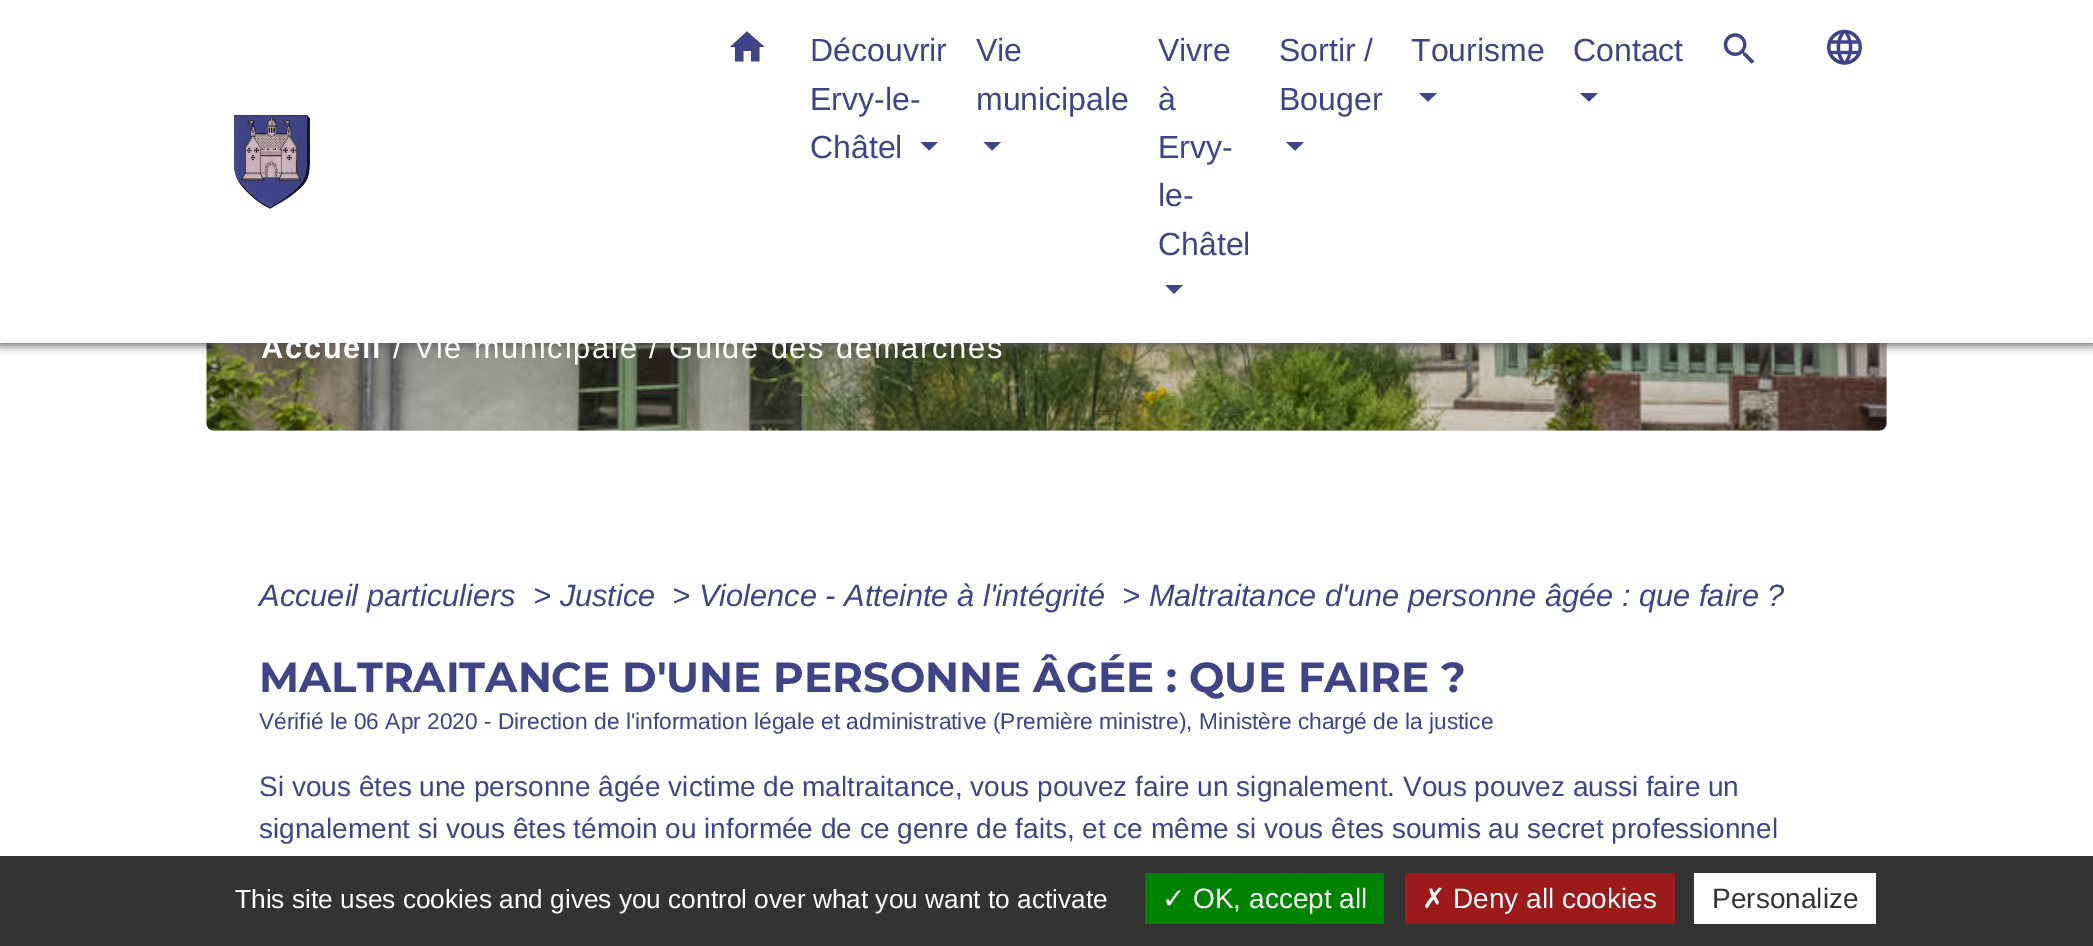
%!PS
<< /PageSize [2093 946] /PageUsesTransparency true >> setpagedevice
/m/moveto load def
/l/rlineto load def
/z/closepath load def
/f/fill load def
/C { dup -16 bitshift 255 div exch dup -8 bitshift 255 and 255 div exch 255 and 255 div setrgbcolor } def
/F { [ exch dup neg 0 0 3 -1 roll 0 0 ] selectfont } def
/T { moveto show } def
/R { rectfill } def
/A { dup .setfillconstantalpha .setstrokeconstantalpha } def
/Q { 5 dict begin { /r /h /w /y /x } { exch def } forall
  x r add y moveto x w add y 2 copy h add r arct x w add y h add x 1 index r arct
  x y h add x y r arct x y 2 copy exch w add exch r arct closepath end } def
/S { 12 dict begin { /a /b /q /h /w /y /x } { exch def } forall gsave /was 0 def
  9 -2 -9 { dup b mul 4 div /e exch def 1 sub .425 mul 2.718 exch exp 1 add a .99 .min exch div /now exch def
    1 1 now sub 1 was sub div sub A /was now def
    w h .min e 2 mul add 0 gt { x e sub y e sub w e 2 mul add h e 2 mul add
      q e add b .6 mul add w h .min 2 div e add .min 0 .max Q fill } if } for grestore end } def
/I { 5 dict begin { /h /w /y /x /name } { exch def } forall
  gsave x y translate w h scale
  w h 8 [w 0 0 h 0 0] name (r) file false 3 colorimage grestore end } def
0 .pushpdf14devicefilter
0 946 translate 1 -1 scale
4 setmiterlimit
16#FFFFFF C
0 0 2093 946 R
16#DADADA C
207 147 1680 284 7 Q f
(4.rgb) 206 343 1681 88 I
16#535353 C
0 2 2093 343 0 5 1 S
16#FFFFFF C
0 0 2093 343 R
(1.rgb) 234 115 76 94 I
16#3E4488 C
743.5 61.5 m -8.5 0 l 0 -14.5 l -5 0 l 17 -15.5 l 17.5 15.5 l -5 0 l 0 14.5 l -8.5 0 l 0 -10.5 l -7.5 0 l z f
/LiberationSans-Regular 32 F
(Découvrir) 810 61 T
(Ervy-le-) 810 110 T
(Châtel) 810 158 T
920.5 142 m 17.5 0 l -9 8.5 l z f
(Vie) 976 61 T
(municipale) 976 110 T
983.5 142 m 17.5 0 l -9 8.5 l z f
(Vivre) 1158 61 T
(à) 1158 110 T
(Ervy-) 1158 158 T
(le-) 1158 206 T
(Châtel) 1158 255 T
1165.5 285 m 17.5 0 l -9 9 l z f
(Sortir /) 1279 61 T
(Bouger) 1279 110 T
1286 142 m 18 0 l -9 8.5 l z f
(Tourisme) 1411 61 T
1419 93 m 18 0 l -9 8.5 l z f
(Contact) 1573 61 T
1580 93 m 18 0 l -9 8.5 l z f
(2.rgb) 1723 33 32 31 I
(3.rgb) 1827 29 35 36 I
/LiberationSans-Bold 30.8 F
16#FFFFFF C
261 358 m 1.75 0 (Accueil) ashow
/LiberationSans-Regular 30.8 F
393 358 m 1.75 0 (/ Vie municipale / Guide des démarches) ashow
/LiberationSans-Italic 30.8 F
16#3E4488 C
(Accueil particuliers) 259 606 T
(> Justice) 533 606 T
(> Violence - Atteinte à l'intégrité) 672 606 T
(> Maltraitance d'une personne âgée : que faire ?) 1122 606 T
/Montserrat-Bold 42 F
(MALTRAITANCE D'UNE PERSONNE ÂGÉE : QUE FAIRE ?) 259 692 T
/LiberationSans-Regular 22.75 F
(Vérifié le 06 Apr 2020 - Direction de l'information légale et administrative \(Première ministre\), Ministère chargé de la justice) 259 729 T
/LiberationSans-Regular 28 F
(Si vous êtes une personne âgée victime de maltraitance, vous pouvez faire un signalement. Vous pouvez aussi faire un) 259 796 T
(signalement si vous êtes témoin ou informée de ce genre de faits, et ce même si vous êtes soumis au secret professionnel) 259 838 T
16#333333 C
0 856 2093 90 R
/LiberationSans-Regular 26.25 F
16#FFFFFF C
(This site uses cookies and gives you control over what you want to activate) 235 908 T
16#008300 C
1145 873 239 51 R
/DejaVuSans-Regular 28 F
16#FFFFFF C
(✓) 1162 908 T
/LiberationSans-Regular 28 F
(OK, accept all) 1193 908 T
16#9C1A1A C
1405 873 270 51 R
/DejaVuSans-Regular 28 F
16#FFFFFF C
(✗) 1422 908 T
/LiberationSans-Regular 28 F
(Deny all cookies) 1453 908 T
1694 873 182 51 R
16#333333 C
(Personalize) 1712 908 T
.poppdf14devicefilter showpage
